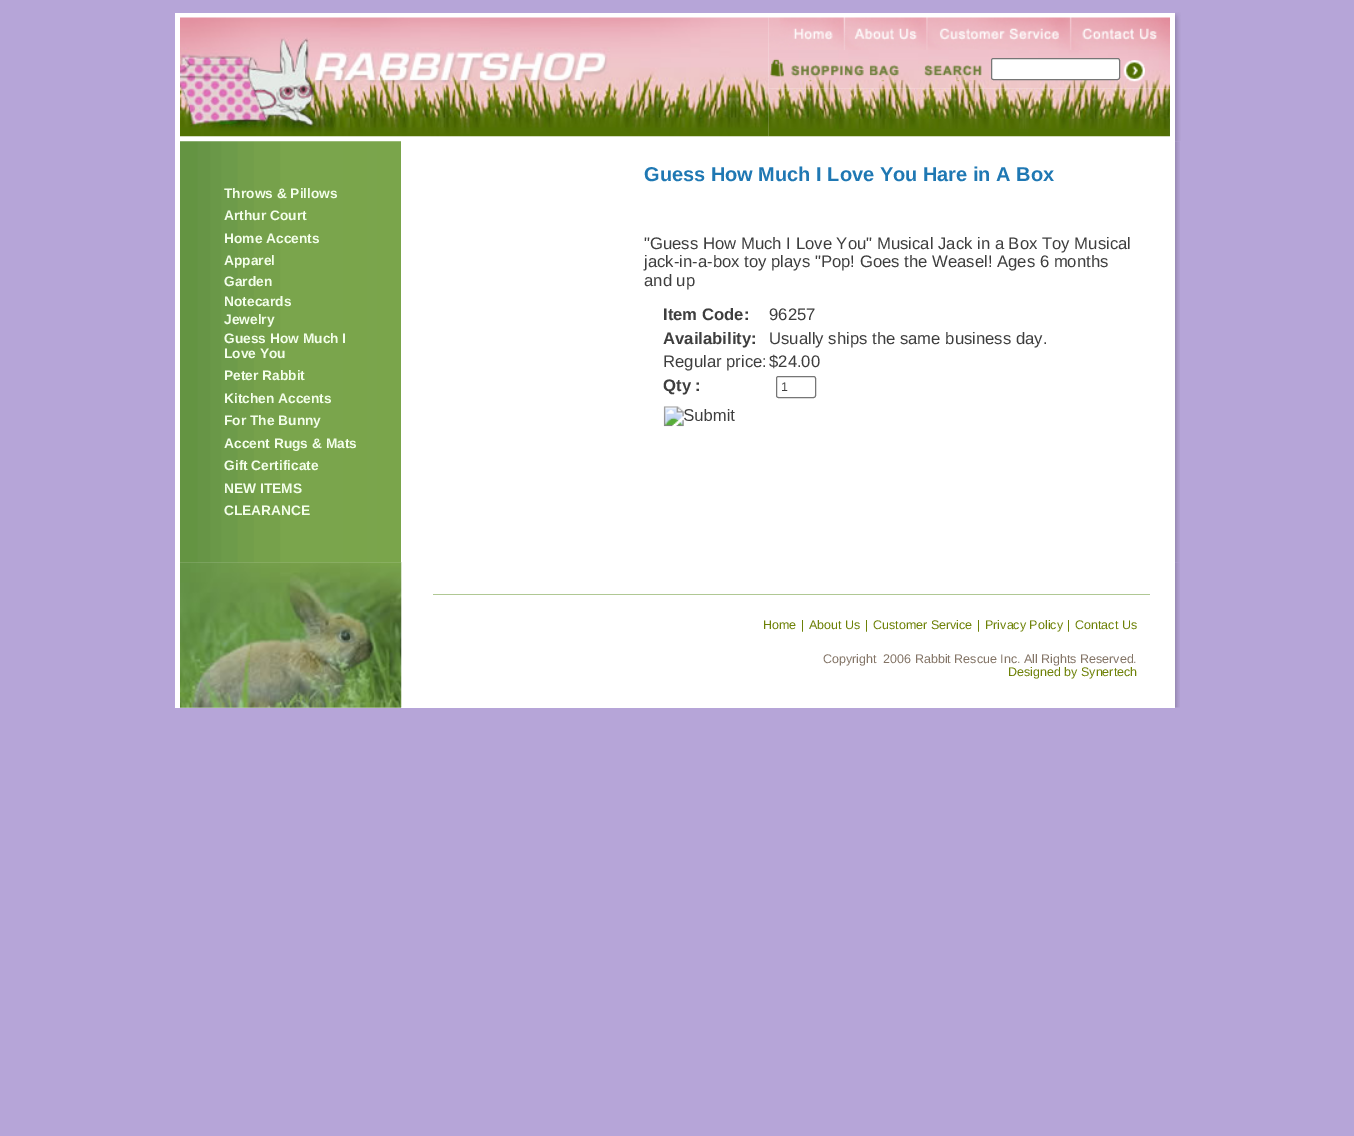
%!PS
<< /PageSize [1354 1136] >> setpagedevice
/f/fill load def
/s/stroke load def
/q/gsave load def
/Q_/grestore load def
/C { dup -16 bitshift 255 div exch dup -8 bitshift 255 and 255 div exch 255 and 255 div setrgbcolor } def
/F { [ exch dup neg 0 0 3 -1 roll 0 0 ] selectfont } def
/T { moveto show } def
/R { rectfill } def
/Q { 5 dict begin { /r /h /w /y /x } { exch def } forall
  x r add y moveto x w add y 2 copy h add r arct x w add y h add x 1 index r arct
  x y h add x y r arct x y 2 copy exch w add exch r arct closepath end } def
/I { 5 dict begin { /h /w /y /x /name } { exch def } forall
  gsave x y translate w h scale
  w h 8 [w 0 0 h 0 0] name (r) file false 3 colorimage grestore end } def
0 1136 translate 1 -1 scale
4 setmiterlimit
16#B6A5D8 C
0 0 1354 1136 R
16#FFFFFF C
175 13 1000 128 R
(3.rgb) 768 50 402 39 I
(1.rgb) 180 17 589 120 I
(2.rgb) 768 17 402 33 I
(4.rgb) 770 58 129 24 I
(5.rgb) 924 65 58 17 I
991.5 58.5 128 21 2 Q q f Q_
16#767676 C
s
(6.rgb) 1123 60 22 22 I
(7.rgb) 768 88 402 49 I
(8.rgb) 1175 12 6 129 I
16#FFFFFF C
175 141 5 567 R
401 141 774 422 R
(9.rgb) 1175 141 5 422 I
(10.rgb) 180 141 221 422 I
/LiberationSans-Bold 13.75 F
16#F3FEEA C
(Throws & Pillows) 224 198 T
(Arthur Court) 224 220 T
(Home Accents) 224 243 T
(Apparel) 224 265 T
(Garden) 224 286 T
(Notecards) 224 306 T
(Jewelry) 224 324 T
(Guess How Much I) 224 343 T
(Love You) 224 358 T
(Peter Rabbit) 224 380 T
(Kitchen Accents) 224 403 T
(For The Bunny) 224 425 T
(Accent Rugs & Mats) 224 448 T
(Gift Certificate) 224 470 T
(NEW ITEMS) 224 493 T
(CLEARANCE) 224 515 T
/LiberationSans-Bold 20 F
16#1F78B3 C
(Guess How Much I Love You Hare in A Box) 644 181 T
/LiberationSans-Regular 16.7 F
16#3E3E3E C
("Guess How Much I Love You" Musical Jack in a Box Toy Musical) 644 249 T
(jack-in-a-box toy plays "Pop! Goes the Weasel! Ages 6 months) 644 267 T
(and up) 644 286 T
/LiberationSans-Bold 16.7 F
(Item Code:) 663 320 T
/LiberationSans-Regular 16.7 F
(96257) 769 320 T
/LiberationSans-Bold 16.7 F
(Availability:) 663 344 T
/LiberationSans-Regular 16.7 F
(Usually ships the same business day.) 769 344 T
(Regular price:) 663 367 T
($24.00) 769 367 T
/LiberationSans-Bold 16.7 F
(Qty :) 663 391 T
16#767676 C
776.5 376.5 39 21 2 Q s
/LiberationSans-Regular 12.5 F
16#3E3E3E C
(1) 781 391 T
(11.rgb) 663 406 72 21 I
(12.rgb) 180 562 222 146 I
16#FFFFFF C
401 563 774 145 R
(13.rgb) 180 562 222 146 I
(14.rgb) 1175 562 5 146 I
16#B0C894 C
433 594 717 1 R
16#6D8106 C
(Home) 763 629 T
(|) 801 629 T
(About Us) 809 629 T
(|) 865 629 T
(Customer Service) 873 629 T
(|) 977 629 T
(Privacy Policy) 985 629 T
(|) 1067 629 T
(Contact Us) 1075 629 T
16#837466 C
(Copyright  2006 Rabbit Rescue Inc. All Rights Reserved.) 823 663 T
16#6D8106 C
(Designed by Synertech) 1008 676 T
showpage
